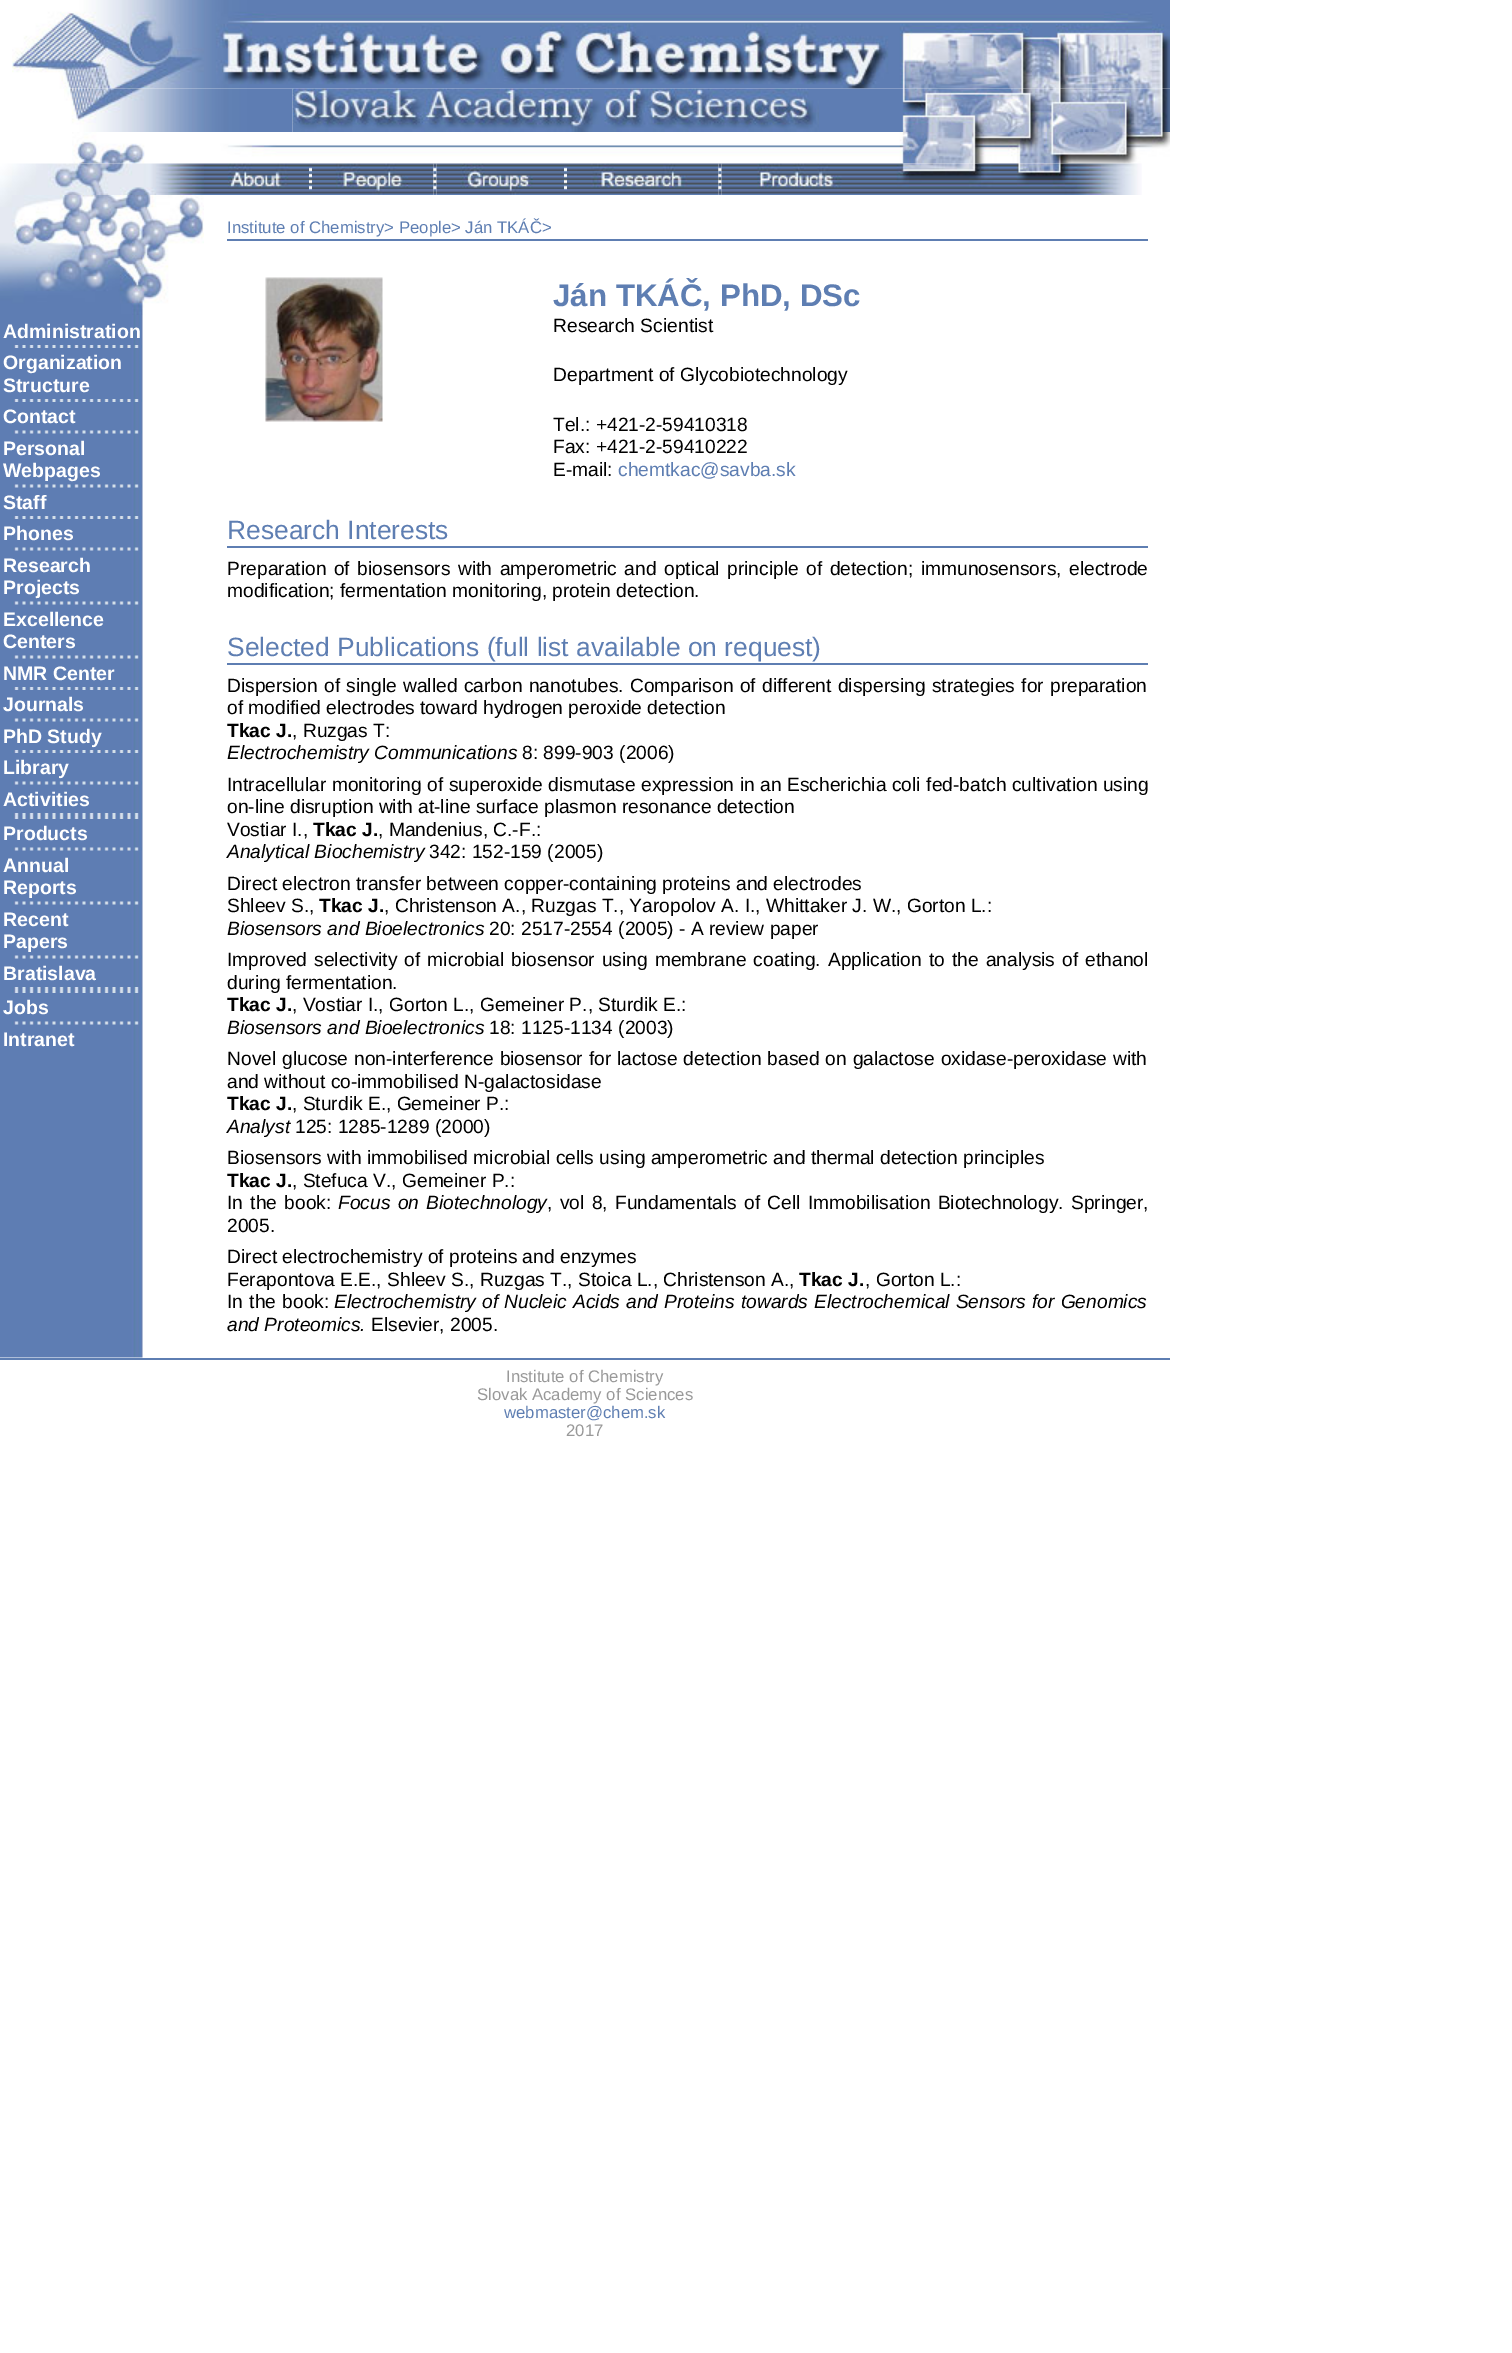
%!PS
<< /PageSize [1512 2353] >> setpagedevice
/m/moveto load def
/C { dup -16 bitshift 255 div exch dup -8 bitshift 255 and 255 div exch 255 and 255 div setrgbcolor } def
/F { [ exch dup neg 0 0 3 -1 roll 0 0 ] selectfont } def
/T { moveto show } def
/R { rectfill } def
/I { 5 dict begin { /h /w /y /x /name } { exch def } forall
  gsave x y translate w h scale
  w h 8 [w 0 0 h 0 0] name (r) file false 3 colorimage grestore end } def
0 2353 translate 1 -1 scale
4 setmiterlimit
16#FFFFFF C
0 0 1512 2353 R
(1.rgb) 12 0 1158 89 I
(2.rgb) 64 88 229 44 I
(3.rgb) 292 88 527 44 I
(4.rgb) 819 88 351 44 I
(5.rgb) 72 132 1098 32 I
(6.rgb) 0 163 204 32 I
(7.rgb) 204 163 105 32 I
(8.rgb) 309 163 3 32 I
(9.rgb) 312 163 122 32 I
(10.rgb) 433 163 4 32 I
(11.rgb) 436 163 128 32 I
(8.rgb) 564 163 3 32 I
(12.rgb) 567 163 152 32 I
(10.rgb) 718 163 4 32 I
(13.rgb) 721 163 152 32 I
(14.rgb) 873 163 269 32 I
(15.rgb) 0 315 143 1043 I
(16.rgb) 0 195 204 120 I
/LiberationSans-Bold 19.5 F
(Administration) 3 338 T
(17.rgb) 12 345 130 3 I
(Organization) 3 369 T
(Structure) 3 392 T
(17.rgb) 12 399 130 3 I
(Contact) 3 423 T
(18.rgb) 12 430 130 4 I
(Personal) 3 455 T
(Webpages) 3 477 T
(18.rgb) 12 484 130 4 I
(Staff) 3 509 T
(17.rgb) 12 516 130 3 I
(Phones) 3 540 T
(18.rgb) 12 547 130 4 I
(Research) 3 572 T
(Projects) 3 594 T
(18.rgb) 12 601 130 4 I
(Excellence) 3 626 T
(Centers) 3 648 T
(18.rgb) 12 655 130 4 I
(NMR Center) 3 680 T
(17.rgb) 12 687 130 3 I
(Journals) 3 711 T
(18.rgb) 12 718 130 4 I
(PhD Study) 3 743 T
(17.rgb) 12 750 130 3 I
(Library) 3 774 T
(18.rgb) 12 781 130 4 I
(Activities) 3 806 T
(17.rgb) 12 813 130 3 I
(17.rgb) 12 816 130 3 I
(Products) 3 840 T
(18.rgb) 12 847 130 4 I
(Annual) 3 872 T
(Reports) 3 894 T
(18.rgb) 12 901 130 4 I
(Recent) 3 926 T
(Papers) 3 948 T
(18.rgb) 12 955 130 4 I
(Bratislava) 3 980 T
(17.rgb) 12 987 130 3 I
(17.rgb) 12 990 130 3 I
(Jobs) 3 1014 T
(18.rgb) 12 1021 130 4 I
(Intranet) 3 1046 T
16#5E7EB2 C
227 239 921 2 R
/LiberationSans-Regular 16.75 F
(Institute of Chemistry> People> Ján TKÁČ>) 227 233 T
(19.rgb) 265 277 118 145 I
/LiberationSans-Bold 31.25 F
(Ján TKÁČ, PhD, DSc) 553 306 T
/LiberationSans-Regular 19.2 F
16#000000 C
(Research Scientist) 553 332 T
(Department of Glycobiotechnology) 553 381 T
(Tel.: +421-2-59410318) 553 431 T
(Fax: +421-2-59410222) 553 453 T
(E-mail:) 553 476 T
16#5E7EB2 C
(chemtkac@savba.sk) 618 476 T
227 546 921 2 R
/LiberationSans-Regular 26.4 F
(Research Interests) 227 539 T
/LiberationSans-Regular 19.2 F
16#000000 C
227 575 m 2.25 0 32 (Preparation of biosensors with amperometric and optical principle of detection; immunosensors, electrode) widthshow
(modification; fermentation monitoring, protein detection.) 227 597 T
16#5E7EB2 C
227 663 921 2 R
/LiberationSans-Regular 26.4 F
(Selected Publications \(full list available on request\)) 227 656 T
/LiberationSans-Regular 19.2 F
16#000000 C
227 692 m 1 0 32 (Dispersion of single walled carbon nanotubes. Comparison of different dispersing strategies for preparation) widthshow
(of modified electrodes toward hydrogen peroxide detection) 227 714 T
/LiberationSans-Bold 19.2 F
(Tkac J.) 227 737 T
/LiberationSans-Regular 19.2 F
(, Ruzgas T:) 292 737 T
/LiberationSans-Italic 19.2 F
(Electrochemistry Communications) 227 759 T
/LiberationSans-Regular 19.2 F
(8: 899-903 \(2006\)) 522 759 T
227 791 m .25 0 32 (Intracellular monitoring of superoxide dismutase expression in an Escherichia coli fed-batch cultivation using) widthshow
(on-line disruption with at-line surface plasmon resonance detection) 227 813 T
(Vostiar I.,) 227 836 T
/LiberationSans-Bold 19.2 F
(Tkac J.) 313 836 T
/LiberationSans-Regular 19.2 F
(, Mandenius, C.-F.:) 378 836 T
/LiberationSans-Italic 19.2 F
(Analytical Biochemistry) 227 858 T
/LiberationSans-Regular 19.2 F
(342: 152-159 \(2005\)) 429 858 T
(Direct electron transfer between copper-containing proteins and electrodes) 227 890 T
(Shleev S.,) 227 912 T
/LiberationSans-Bold 19.2 F
(Tkac J.) 319 912 T
/LiberationSans-Regular 19.2 F
(, Christenson A., Ruzgas T., Yaropolov A. I., Whittaker J. W., Gorton L.:) 384 912 T
/LiberationSans-Italic 19.2 F
(Biosensors and Bioelectronics) 227 935 T
/LiberationSans-Regular 19.2 F
(20: 2517-2554 \(2005\) - A review paper) 489 935 T
227 966 m 1.75 0 32 (Improved selectivity of microbial biosensor using membrane coating. Application to the analysis of ethanol) widthshow
(during fermentation.) 227 989 T
/LiberationSans-Bold 19.2 F
(Tkac J.) 227 1011 T
/LiberationSans-Regular 19.2 F
(, Vostiar I., Gorton L., Gemeiner P., Sturdik E.:) 292 1011 T
/LiberationSans-Italic 19.2 F
(Biosensors and Bioelectronics) 227 1034 T
/LiberationSans-Regular 19.2 F
(18: 1125-1134 \(2003\)) 489 1034 T
227 1065 m .5 0 32 (Novel glucose non-interference biosensor for lactose detection based on galactose oxidase-peroxidase with) widthshow
(and without co-immobilised N-galactosidase) 227 1088 T
/LiberationSans-Bold 19.2 F
(Tkac J.) 227 1110 T
/LiberationSans-Regular 19.2 F
(, Sturdik E., Gemeiner P.:) 292 1110 T
/LiberationSans-Italic 19.2 F
(Analyst) 227 1133 T
/LiberationSans-Regular 19.2 F
(125: 1285-1289 \(2000\)) 295 1133 T
(Biosensors with immobilised microbial cells using amperometric and thermal detection principles) 227 1164 T
/LiberationSans-Bold 19.2 F
(Tkac J.) 227 1187 T
/LiberationSans-Regular 19.2 F
(, Stefuca V., Gemeiner P.:) 292 1187 T
227 1209 m 2 0 32 (In the book:) widthshow
/LiberationSans-Italic 19.2 F
338 1209 m 2 0 32 (Focus on Biotechnology) widthshow
/LiberationSans-Regular 19.2 F
547 1209 m 2 0 32 (, vol 8, Fundamentals of Cell Immobilisation Biotechnology. Springer,) widthshow
(2005.) 227 1232 T
(Direct electrochemistry of proteins and enzymes) 227 1263 T
(Ferapontova E.E., Shleev S., Ruzgas T., Stoica L., Christenson A.,) 227 1286 T
/LiberationSans-Bold 19.2 F
(Tkac J.) 799 1286 T
/LiberationSans-Regular 19.2 F
(, Gorton L.:) 865 1286 T
227 1308 m 1 0 32 (In the book:) widthshow
/LiberationSans-Italic 19.2 F
334 1308 m .75 0 32 (Electrochemistry of Nucleic Acids and Proteins towards Electrochemical Sensors for Genomics) widthshow
(and Proteomics.) 227 1331 T
/LiberationSans-Regular 19.2 F
(Elsevier, 2005.) 371 1331 T
16#5E7EB2 C
0 1358 1170 2 R
/LiberationSans-Regular 16.75 F
16#999999 C
(Institute of Chemistry) 506 1382 T
(Slovak Academy of Sciences) 477 1400 T
16#5E7EB2 C
(webmaster@chem.sk) 504 1418 T
16#999999 C
(2017) 566 1436 T
showpage
